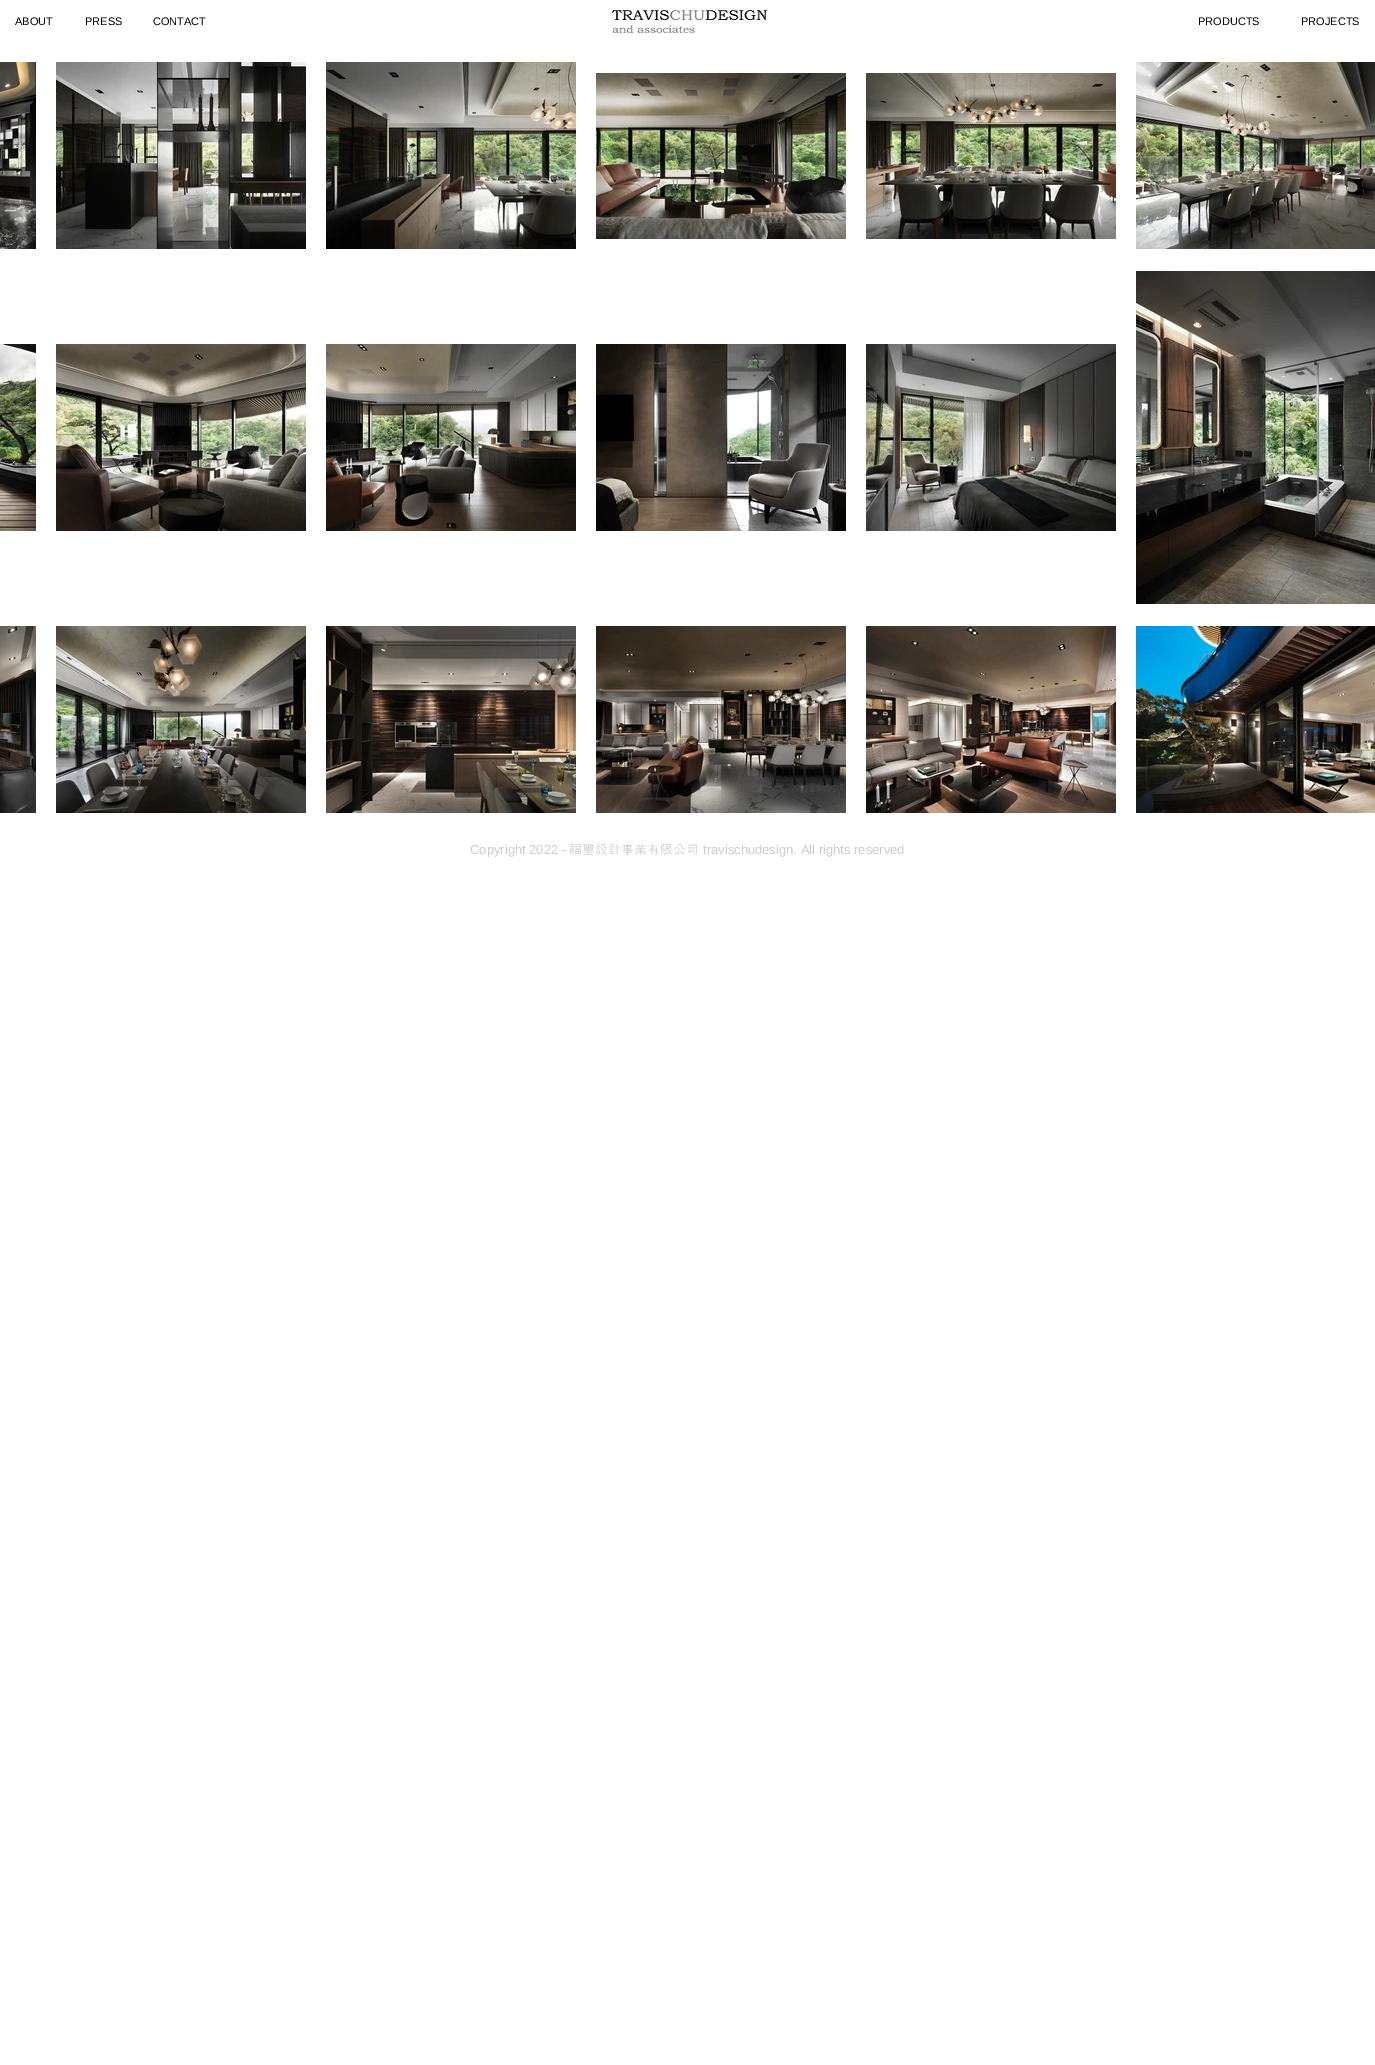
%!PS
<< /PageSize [1375 2065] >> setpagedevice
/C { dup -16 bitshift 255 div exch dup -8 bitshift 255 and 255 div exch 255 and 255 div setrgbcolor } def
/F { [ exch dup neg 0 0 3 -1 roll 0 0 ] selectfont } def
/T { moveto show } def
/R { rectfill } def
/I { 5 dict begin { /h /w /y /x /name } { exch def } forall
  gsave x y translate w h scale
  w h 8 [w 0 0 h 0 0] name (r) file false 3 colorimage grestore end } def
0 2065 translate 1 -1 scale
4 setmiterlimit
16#FFFFFF C
0 0 1375 2065 R
/LiberationSans-Regular 11 F
16#000000 C
(ABOUT) 15 25 T
(PRESS) 85 25 T
(CONTACT) 153 25 T
(1.rgb) 612 10 155 23 I
(PROJECTS) 1301 25 T
(PRODUCTS) 1198 25 T
(2.rgb) 0 62 36 187 I
(3.rgb) 56 62 250 187 I
(4.rgb) 326 62 250 187 I
(5.rgb) 596 73 250 166 I
(6.rgb) 866 73 250 166 I
(7.rgb) 1136 62 239 187 I
(8.rgb) 0 344 36 187 I
(9.rgb) 56 344 250 187 I
(10.rgb) 326 344 250 187 I
(11.rgb) 596 344 250 187 I
(12.rgb) 866 344 250 187 I
(13.rgb) 1136 271 239 333 I
(14.rgb) 0 626 36 187 I
(15.rgb) 56 626 250 187 I
(16.rgb) 326 626 250 187 I
(17.rgb) 596 626 250 187 I
(18.rgb) 866 626 250 187 I
(19.rgb) 1136 626 239 187 I
/LiberationSans-Regular 13 F
16#CCCCCC C
(Copyright 2022 -) 470 854 T
/Dotum-Regular 13 F
(福璽設計事業有限公司) 569 854 T
/LiberationSans-Regular 13 F
(travischudesign. All rights reserved) 703 854 T
showpage
